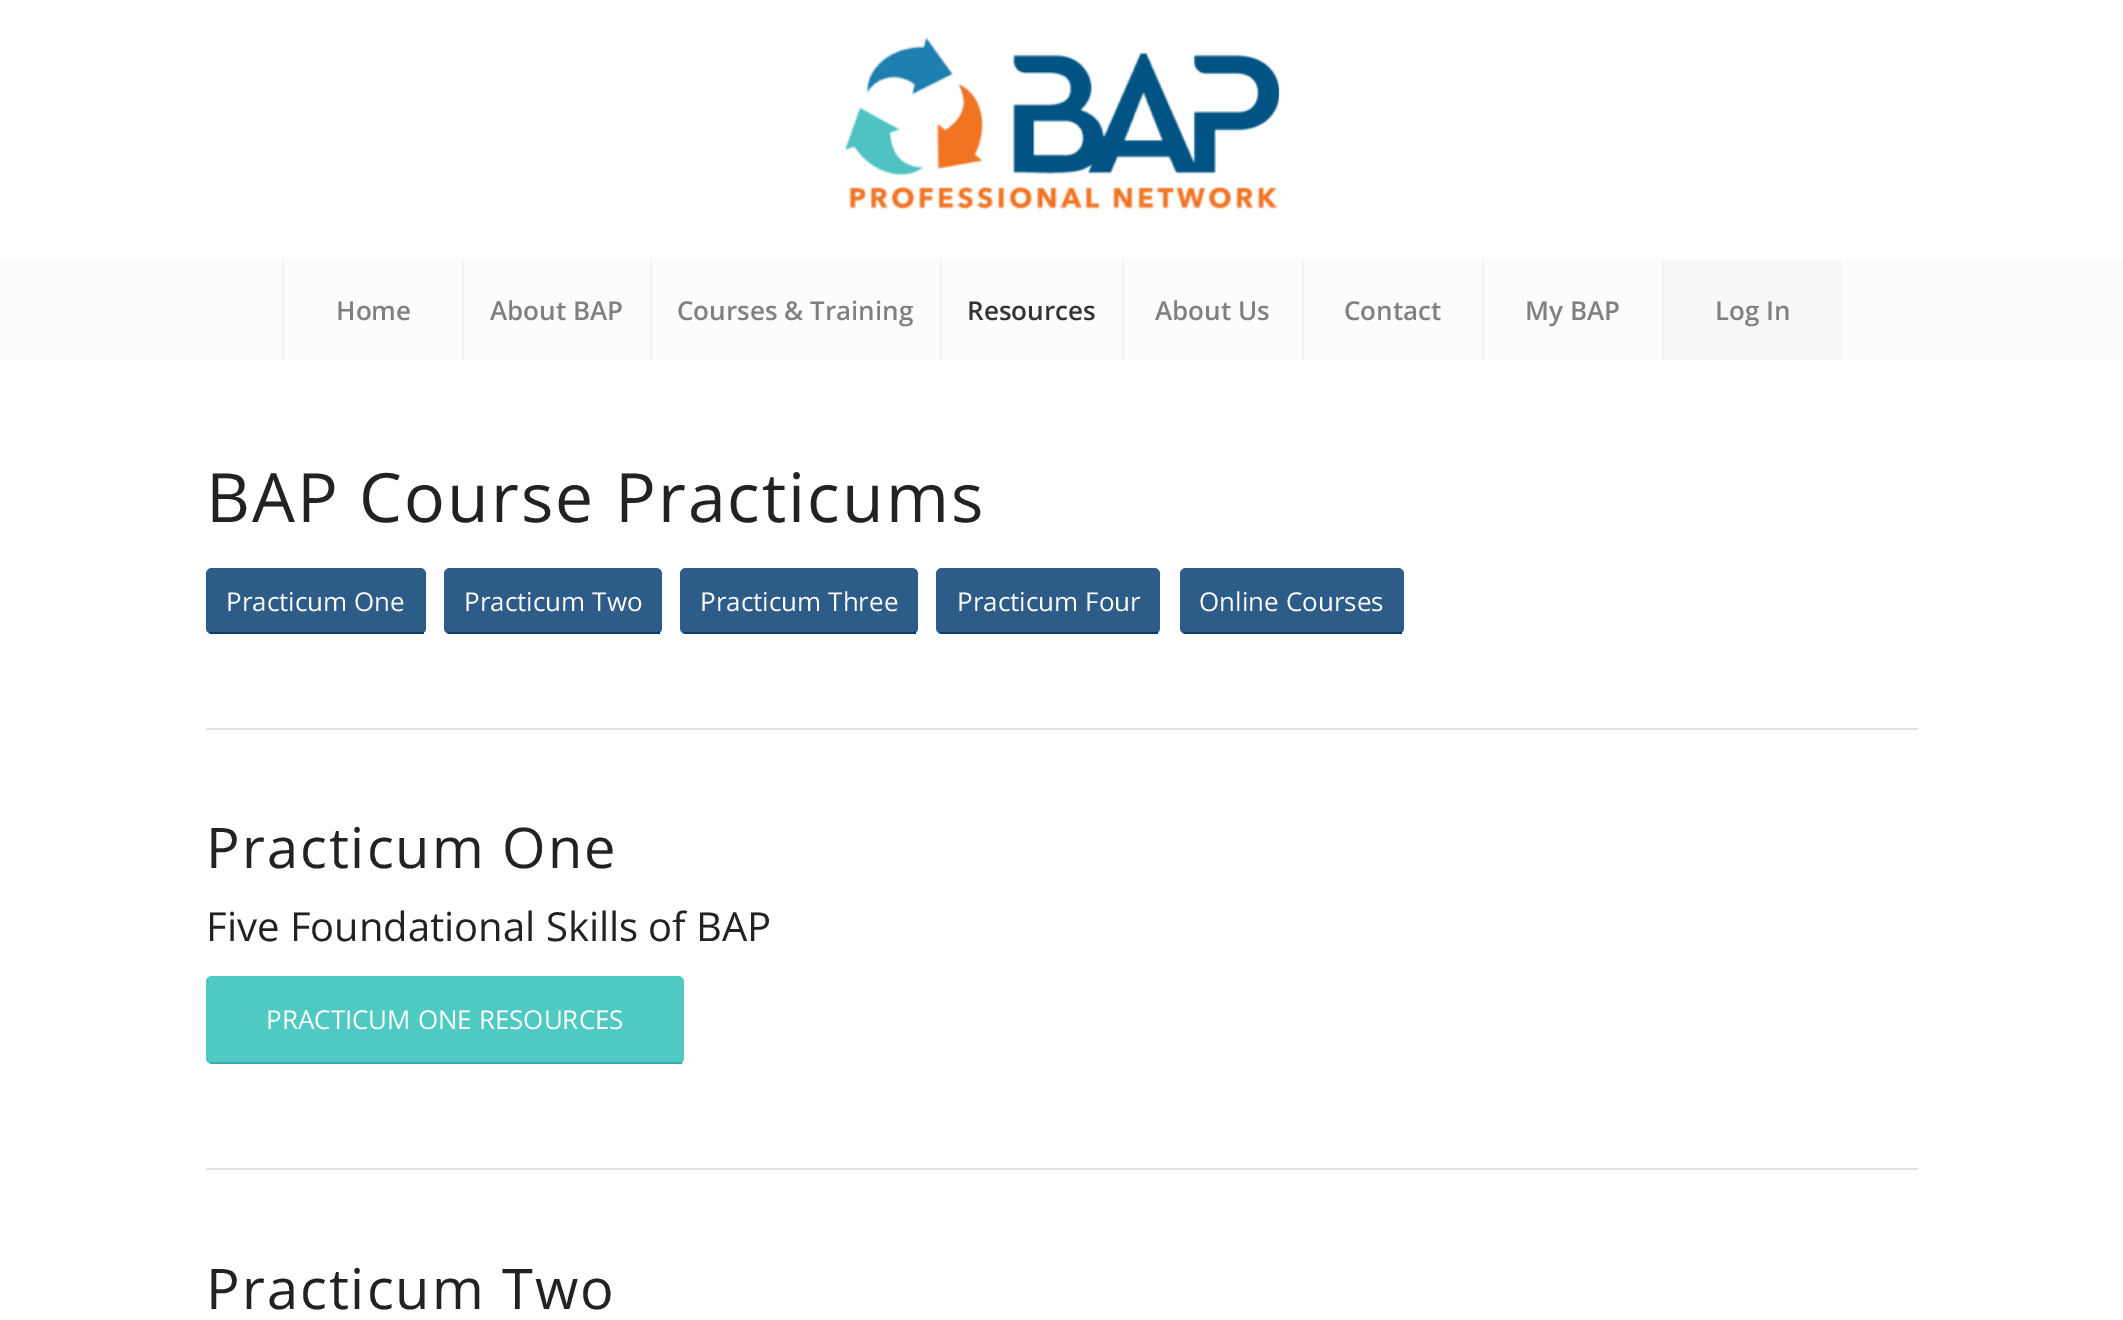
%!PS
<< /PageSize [2123 1320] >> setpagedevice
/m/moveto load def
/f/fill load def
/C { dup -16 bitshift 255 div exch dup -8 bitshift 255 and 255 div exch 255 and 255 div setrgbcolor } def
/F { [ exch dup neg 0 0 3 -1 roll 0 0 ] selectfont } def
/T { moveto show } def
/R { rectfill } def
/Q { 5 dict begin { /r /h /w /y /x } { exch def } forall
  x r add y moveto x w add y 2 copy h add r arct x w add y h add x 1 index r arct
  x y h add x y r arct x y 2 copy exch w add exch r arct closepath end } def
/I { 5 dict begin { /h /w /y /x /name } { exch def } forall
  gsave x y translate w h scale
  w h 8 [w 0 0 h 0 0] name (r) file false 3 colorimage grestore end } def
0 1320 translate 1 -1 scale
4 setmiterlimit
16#FFFFFF C
0 0 2123 1320 R
(1.rgb) 845 37 435 173 I
16#FCFCFC C
0 260 2123 100 R
16#F2F2F2 C
282 260 2 100 R
/OpenSans-SemiBold 26 F
16#808080 C
(Home) 336 320 T
16#F2F2F2 C
462 260 2 100 R
16#808080 C
(About BAP) 490 320 T
16#F2F2F2 C
650 260 2 100 R
16#808080 C
(Courses & Training) 677 320 T
16#F2F2F2 C
940 260 2 100 R
16#333333 C
(Resources) 967 320 T
16#F2F2F2 C
1122 260 2 100 R
16#808080 C
(About Us) 1155 320 T
16#F2F2F2 C
1302 260 2 100 R
16#808080 C
(Contact) 1344 320 T
16#F2F2F2 C
1482 260 2 100 R
16#808080 C
(My BAP) 1525 320 T
16#F8F8F8 C
1664 260 178 100 R
16#F2F2F2 C
1662 260 2 100 R
16#808080 C
(Log In) 1715 320 T
/OpenSans-Regular 68 F
16#222222 C
206 522 m 2 0 (BAP Course Practicums) ashow
16#2D5C88 C
206 568 220 66 6 Q f
16#0B3A66 C
210 632 214 2 R
/OpenSans-Regular 26 F
16#FFFFFF C
(Practicum One) 226 611 T
16#2D5C88 C
444 568 218 66 6 Q f
16#0B3A66 C
448 632 212 2 R
16#FFFFFF C
(Practicum Two) 464 611 T
16#2D5C88 C
680 568 238 66 6 Q f
16#0B3A66 C
684 632 232 2 R
16#FFFFFF C
(Practicum Three) 700 611 T
16#2D5C88 C
936 568 224 66 6 Q f
16#0B3A66 C
940 632 218 2 R
16#FFFFFF C
(Practicum Four) 957 611 T
16#2D5C88 C
1180 568 224 66 6 Q f
16#0B3A66 C
1184 632 218 2 R
16#FFFFFF C
(Online Courses) 1199 611 T
16#E1E1E1 C
206 728 1712 2 R
/OpenSans-Regular 56 F
16#222222 C
206 868 m 2 0 (Practicum One) ashow
/OpenSans-Regular 40 F
(Five Foundational Skills of BAP) 206 941 T
16#4ECAC2 C
206 976 478 88 6 Q f
16#3EAAA3 C
210 1062 472 2 R
/OpenSans-Regular 26 F
16#FFFFFF C
(PRACTICUM ONE RESOURCES) 266 1029 T
16#E1E1E1 C
206 1168 1712 2 R
/OpenSans-Regular 56 F
16#222222 C
206 1309 m 2 0 (Practicum Two) ashow
showpage
